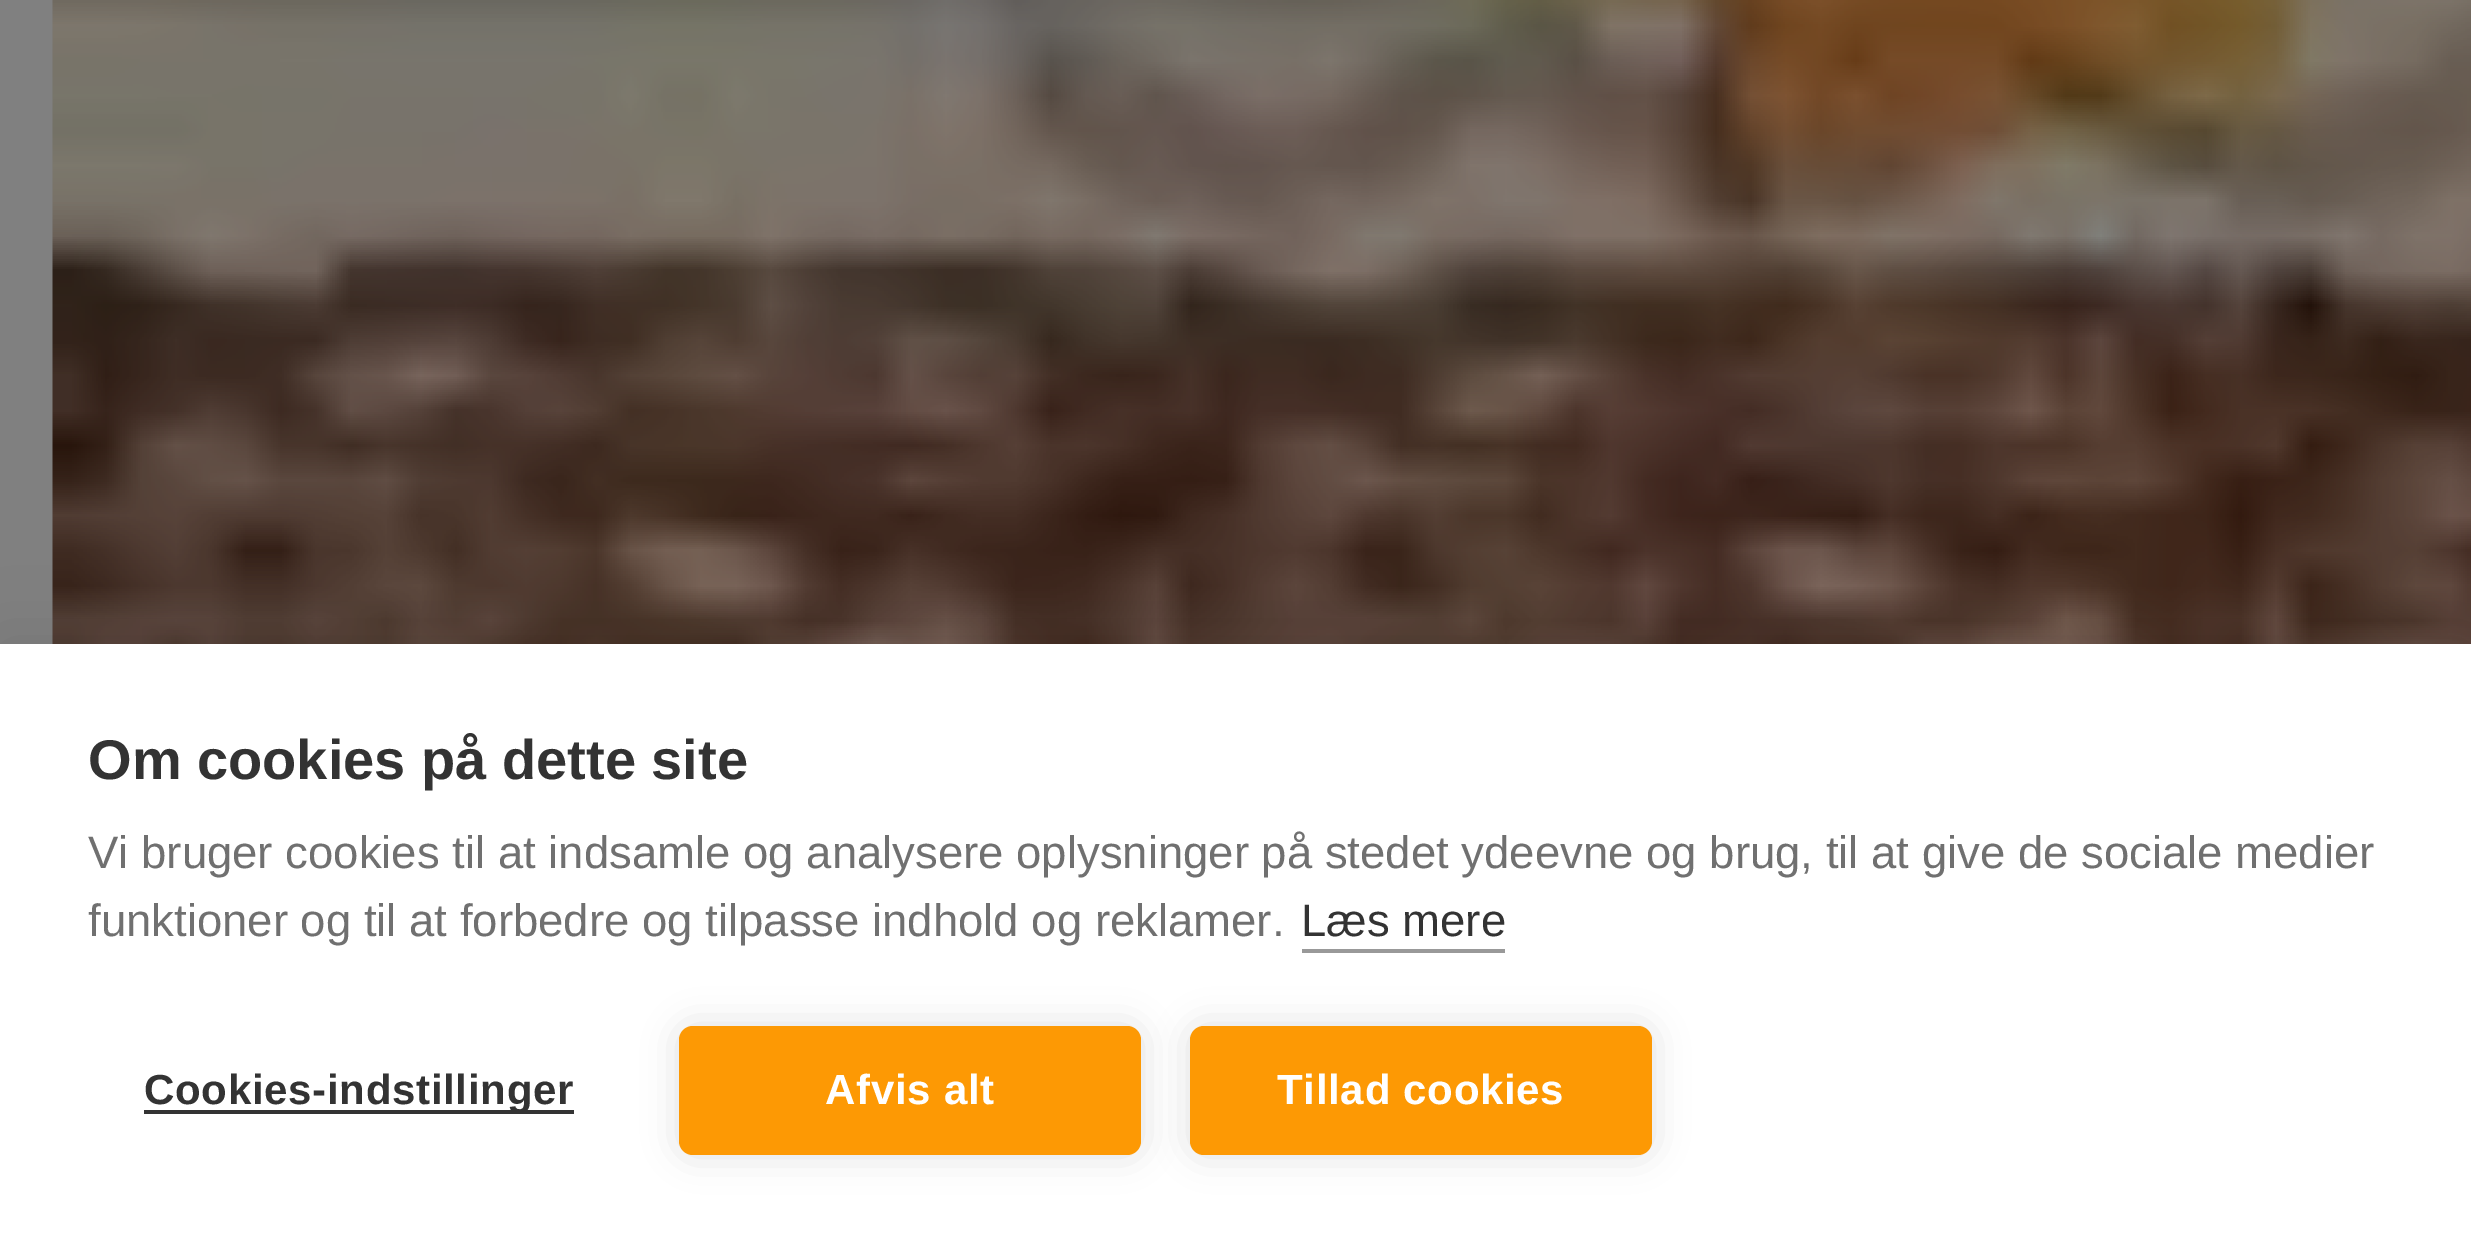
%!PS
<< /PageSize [2471 1240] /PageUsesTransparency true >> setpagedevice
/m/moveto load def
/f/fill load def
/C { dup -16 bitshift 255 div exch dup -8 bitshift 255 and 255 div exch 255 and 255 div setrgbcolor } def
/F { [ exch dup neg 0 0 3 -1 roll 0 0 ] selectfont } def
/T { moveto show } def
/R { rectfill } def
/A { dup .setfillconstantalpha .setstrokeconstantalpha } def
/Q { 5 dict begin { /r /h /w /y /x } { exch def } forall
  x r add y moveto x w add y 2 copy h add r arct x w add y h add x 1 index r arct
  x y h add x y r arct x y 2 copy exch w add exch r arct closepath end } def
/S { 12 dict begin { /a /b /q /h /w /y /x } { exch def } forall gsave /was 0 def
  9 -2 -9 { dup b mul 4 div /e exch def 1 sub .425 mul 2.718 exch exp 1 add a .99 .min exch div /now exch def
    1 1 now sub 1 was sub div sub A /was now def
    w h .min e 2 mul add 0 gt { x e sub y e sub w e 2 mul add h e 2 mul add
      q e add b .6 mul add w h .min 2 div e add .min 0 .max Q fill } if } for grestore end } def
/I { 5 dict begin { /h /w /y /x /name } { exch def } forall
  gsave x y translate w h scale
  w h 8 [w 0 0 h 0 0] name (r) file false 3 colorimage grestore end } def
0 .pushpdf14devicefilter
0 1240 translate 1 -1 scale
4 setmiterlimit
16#808080 C
0 0 2471 1240 R
(1.rgb) 52 0 2419 644 I
16#000000 C
0 644 2471 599 0 35 .1 S
16#FFFFFF C
0 644 2471 596 R
/LiberationSans-Bold 56 F
16#333333 C
(Om cookies på dette site) 88 779 T
/LiberationSans-Regular 45.5 F
16#707070 C
(Vi bruger cookies til at indsamle og analysere oplysninger på stedet ydeevne og brug, til at give de sociale medier) 88 868 T
(funktioner og til at forbedre og tilpasse indhold og reklamer.) 88 936 T
16#333333 C
(Læs mere) 1301 936 T
16#999999 C
1302 949 203 4 R
16#333333 C
144 1110 430 4 R
/LiberationSans-Bold 42 F
144 1104 m .7 0 (Cookies-indstillinger) ashow
16#000000 C
679 1026 462 129 14 17.5 .12 S
16#FD9904 C
679 1026 462 129 14 Q f
16#FFFFFF C
825 1104 m .7 0 (Afvis alt) ashow
16#000000 C
1190 1026 462 129 14 17.5 .12 S
16#FD9904 C
1190 1026 462 129 14 Q f
16#FFFFFF C
1277 1104 m .7 0 (Tillad cookies) ashow
.poppdf14devicefilter showpage
